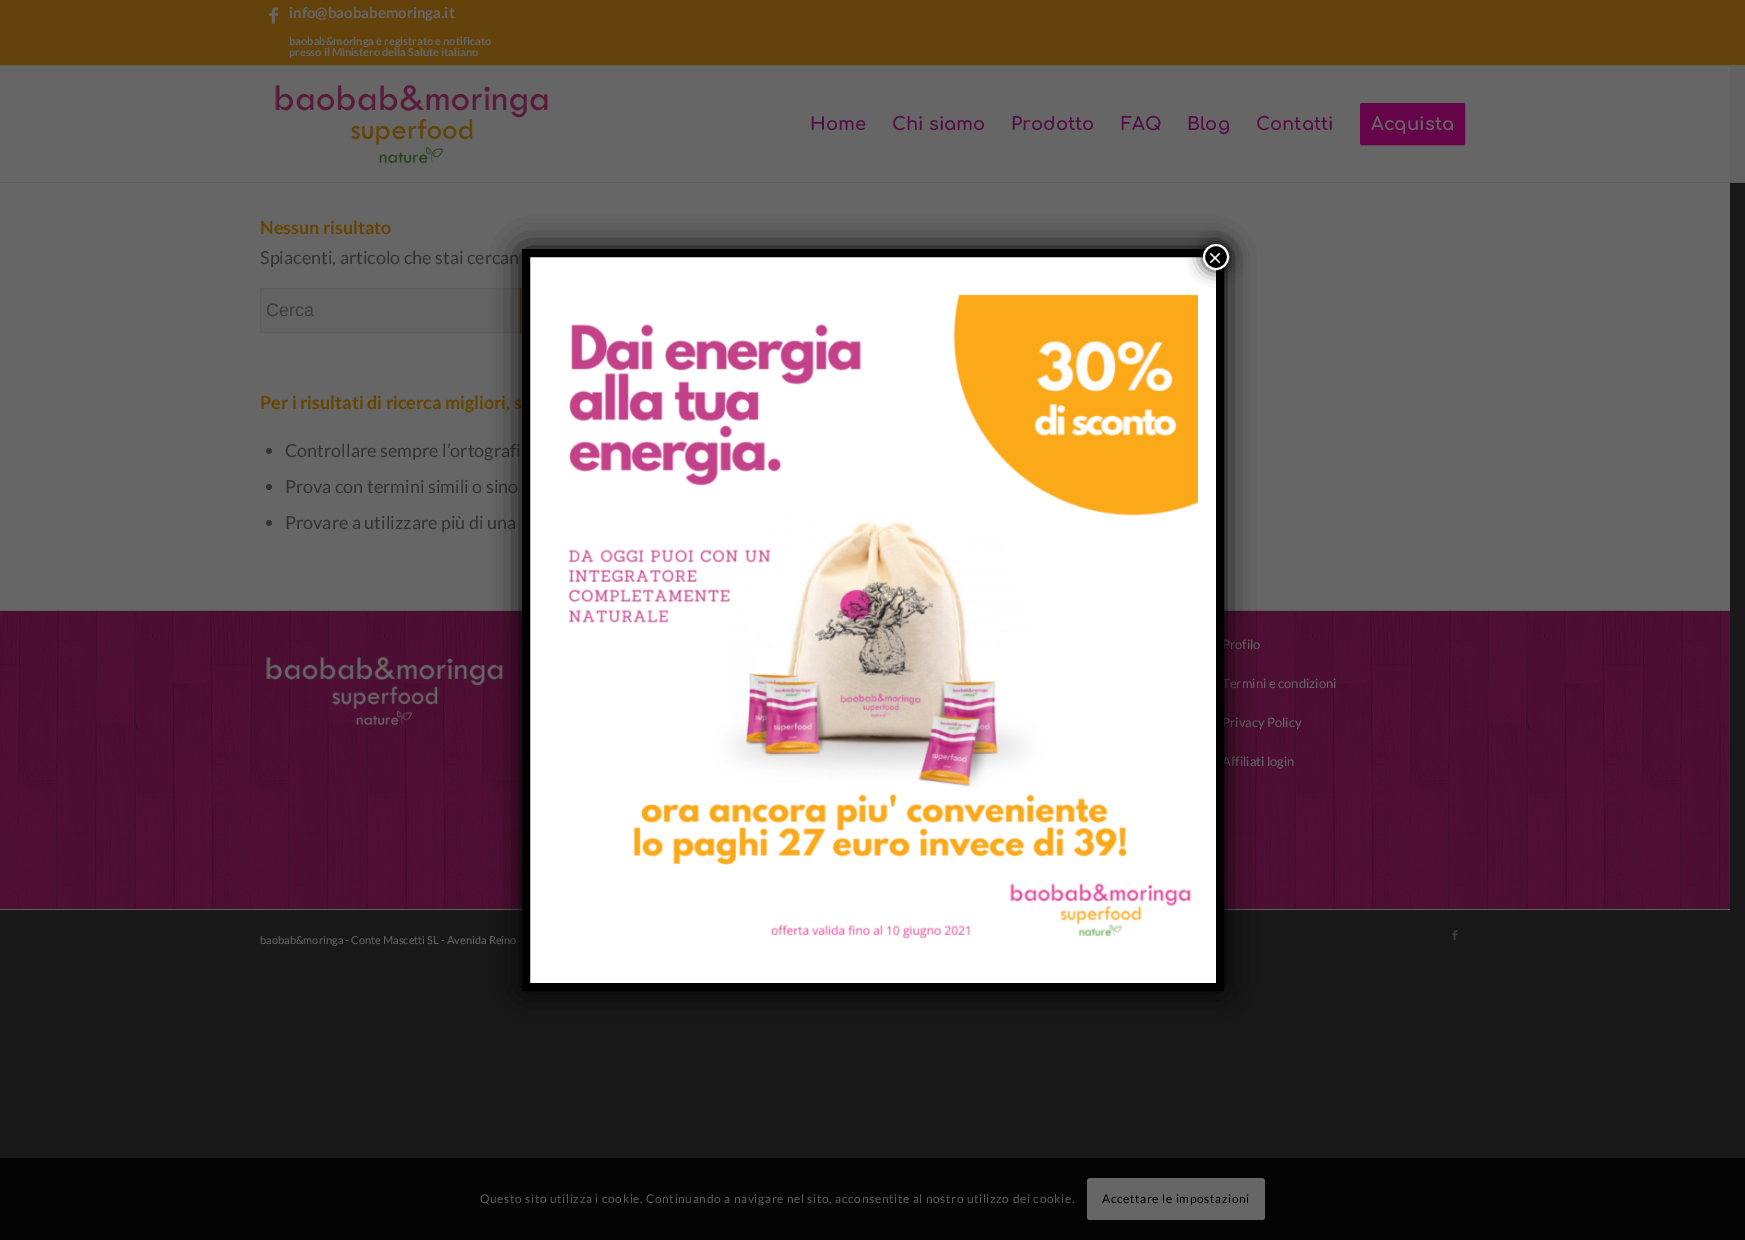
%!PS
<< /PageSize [1745 1240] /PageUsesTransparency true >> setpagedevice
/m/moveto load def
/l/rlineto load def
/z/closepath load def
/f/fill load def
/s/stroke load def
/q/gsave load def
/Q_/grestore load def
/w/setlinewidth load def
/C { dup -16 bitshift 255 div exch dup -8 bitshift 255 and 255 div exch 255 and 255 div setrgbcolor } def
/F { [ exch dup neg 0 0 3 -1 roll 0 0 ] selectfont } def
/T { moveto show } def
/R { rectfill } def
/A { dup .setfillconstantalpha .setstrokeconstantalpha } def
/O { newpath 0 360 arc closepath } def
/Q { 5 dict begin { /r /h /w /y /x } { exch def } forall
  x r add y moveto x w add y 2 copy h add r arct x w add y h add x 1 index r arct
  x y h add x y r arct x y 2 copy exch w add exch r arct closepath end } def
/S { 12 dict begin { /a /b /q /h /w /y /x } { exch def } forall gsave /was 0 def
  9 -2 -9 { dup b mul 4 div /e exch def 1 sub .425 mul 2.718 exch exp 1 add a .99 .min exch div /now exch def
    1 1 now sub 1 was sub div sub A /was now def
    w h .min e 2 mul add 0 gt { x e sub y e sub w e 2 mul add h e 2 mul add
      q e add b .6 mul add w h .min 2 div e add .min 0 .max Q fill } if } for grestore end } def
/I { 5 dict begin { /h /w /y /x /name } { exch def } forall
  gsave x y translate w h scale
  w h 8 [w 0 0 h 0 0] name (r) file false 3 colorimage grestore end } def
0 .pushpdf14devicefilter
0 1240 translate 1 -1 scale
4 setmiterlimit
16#181818 C
0 0 1745 1240 R
16#040404 C
0 1158 1745 82 R
16#626262 C
1730 66 15 116 R
16#64420B C
0 0 1745 65 R
16#5E5E5E C
0 65 1745 1 R
(1.rgb) 269 7 9 17 I
/Lato-Bold 15 F
16#666666 C
(info@baobabemoringa.it) 289 18 T
/Lato-Bold 11 F
(baobab&moringa è registrato e notificato) 289 45 T
(presso il Ministero della Salute italiano) 289 56 T
16#5E5E5E C
0 182 1745 1 R
16#666666 C
0 66 1730 116 R
(2.rgb) 275 85 273 78 I
/Comfortaa-Bold 18 F
16#540E45 C
(Home) 810 130 T
(Chi siamo) 892 130 T
(Prodotto) 1011 130 T
(FAQ) 1121 130 T
(Blog) 1187 130 T
(Contatti) 1256 130 T
16#66044A C
1361 104 103 40 1 Q q f Q_
2 w
s
16#666666 C
(Acquista) 1371 130 T
0 183 1730 427 R
/Lato-Bold 18 F
16#664400 C
(Nessun risultato) 260 234 T
/Lato-Regular 18 F
16#333333 C
(Spiacenti, articolo che stai cercan) 260 264 T
16#636363 C
261 289 259 43 R
16#5E5E5E C
1 w
260.5 288.5 299 44 rectstroke
/LiberationSans-Regular 18 F
16#3C3C3C C
(Cerca) 266 316 T
16#664400 C
520 288 2 45 R
/Lato-Bold 18 F
(Per i risultati di ricerca migliori, s) 260 409 T
16#333333 C
269 451 3 O f
/Lato-Regular 18 F
(Controllare sempre l’ortografi) 285 457 T
269 487 3 O f
(Prova con termini simili o sino) 285 493 T
269 523 3 O f
(Provare a utilizzare più di una) 285 529 T
16#531037 C
0 611 1730 298 R
(3.rgb) 0 611 1730 298 I
16#5E5E5E C
0 610 1730 1 R
(4.rgb) 266 657 237 68 I
/Lato-Regular 13 F
16#666666 C
(Profilo) 1222 649 T
(Termini e condizioni) 1222 688 T
(Privacy Policy) 1222 727 T
(Affiliati login) 1222 766 T
16#5E5E5E C
0 909 1730 1 R
/Lato-Regular 11 F
16#666666 C
(baobab&moringa - Conte Mascetti SL - Avenida Reino) 260 944 T
(5.rgb) 1452 930 6 11 I
16#020202 C
522 249 702 742 3 15 1 S
16#FFFFFF C
530 257 686 726 R
16#000000 C
8 w
526 253 m 694 0 l 0 734 l -694 0 l z s
(6.rgb) 568 294 630 645 I
16#020202 C
1202 243 28 28 14 7.5 .75 S
16#000000 C
1216 257 12 O q f Q_
16#FFFFFF C
2 w
s
/LiberationSans-Regular 24 F
(×) 1208 266 T
/Lato-Regular 12 F
16#5C5C5C C
480 1203 m .6 0 (Questo sito utilizza i cookie. Continuando a navigare nel sito, acconsentite al nostro utilizzo dei cookie.) ashow
16#666666 C
1087 1178 178 42 3 Q f
16#000000 C
1102 1203 m .6 0 (Accettare le impostazioni) ashow
.poppdf14devicefilter showpage
